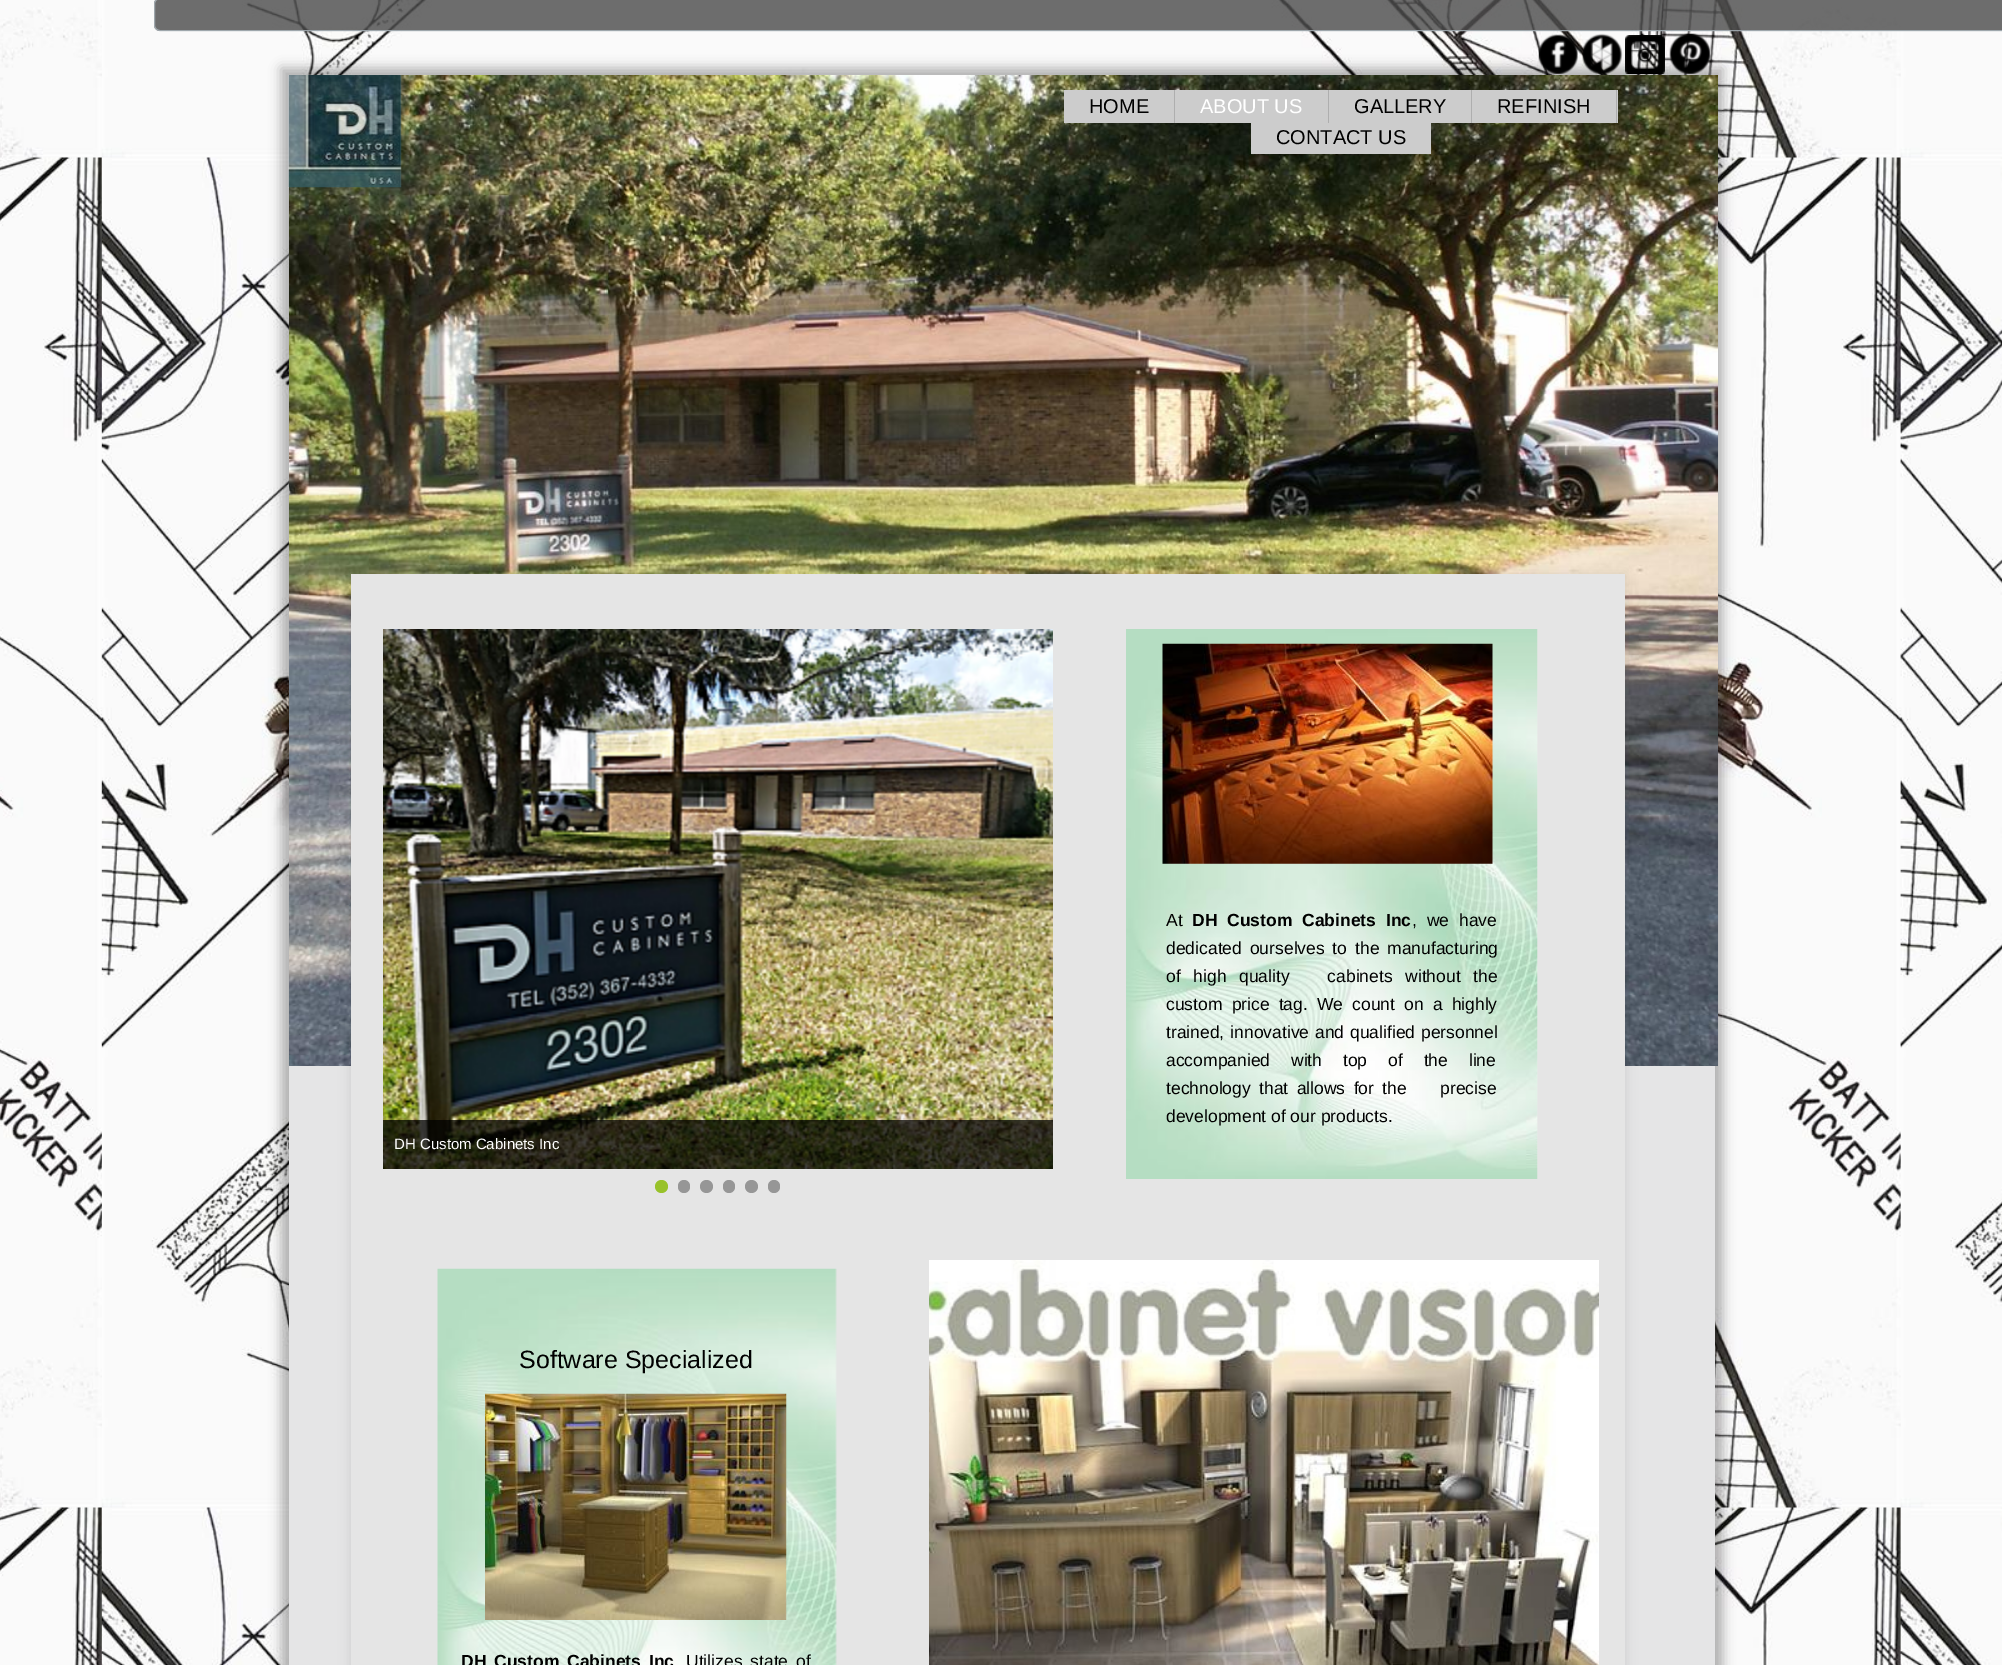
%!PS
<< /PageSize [2002 1665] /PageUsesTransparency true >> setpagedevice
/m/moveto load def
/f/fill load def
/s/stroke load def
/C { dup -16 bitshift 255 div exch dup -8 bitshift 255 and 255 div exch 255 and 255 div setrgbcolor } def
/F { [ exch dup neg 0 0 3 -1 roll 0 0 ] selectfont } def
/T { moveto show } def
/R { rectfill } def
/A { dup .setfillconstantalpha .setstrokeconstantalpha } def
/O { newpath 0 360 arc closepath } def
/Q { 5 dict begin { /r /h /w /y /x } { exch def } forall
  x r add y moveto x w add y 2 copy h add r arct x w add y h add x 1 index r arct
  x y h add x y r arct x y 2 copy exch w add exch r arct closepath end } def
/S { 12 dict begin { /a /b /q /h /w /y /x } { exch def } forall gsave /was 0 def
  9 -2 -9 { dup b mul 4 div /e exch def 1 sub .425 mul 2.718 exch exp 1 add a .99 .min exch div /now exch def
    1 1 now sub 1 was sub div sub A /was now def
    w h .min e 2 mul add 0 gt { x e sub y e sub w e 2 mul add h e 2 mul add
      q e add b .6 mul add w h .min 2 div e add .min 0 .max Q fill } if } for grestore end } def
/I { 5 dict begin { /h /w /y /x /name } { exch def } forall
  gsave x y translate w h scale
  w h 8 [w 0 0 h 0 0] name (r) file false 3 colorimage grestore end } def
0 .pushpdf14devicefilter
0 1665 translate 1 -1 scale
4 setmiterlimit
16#FFFFFF C
0 0 2002 1665 R
(1.rgb) 0 0 2002 1665 I
16#000000 C
281 68 1442 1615 0 6 .3 S
16#E5E5E6 C
289 1066 1426 599 R
0.81 A
16#4C4C4C C
154 -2 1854 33 6 Q f
16#A9B4BB C
154.5 -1.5 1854 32 5.5 Q s
1 A
(2.rgb) 1538 34 40 40 I
(3.rgb) 1582 33 41 41 I
(4.rgb) 1625 35 40 39 I
(5.rgb) 1669 33 42 41 I
(7.rgb) 289 75 1429 991 I
(6.rgb) 288 75 114 113 I
16#CCCCCC C
1064 90 110 33 R
16#AEAEAE C
1174 90 1 33 R
/LiberationSans-Regular 20 F
16#000000 C
(HOME) 1089 113 T
16#CCCCCC C
1175 90 153 33 R
16#AEAEAE C
1328 90 1 33 R
16#FFFFFF C
(ABOUT US) 1200 113 T
16#CCCCCC C
1329 90 289 33 R
16#AEAEAE C
1471 90 1 33 R
16#000000 C
(GALLERY) 1354 113 T
16#AEAEAE C
1616 90 1 33 R
16#000000 C
(REFINISH) 1497 113 T
16#CCCCCC C
1251 123 180 31 R
16#000000 C
(CONTACT US) 1276 144 T
351 574 1274 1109 0 6 .1 S
16#E5E5E5 C
351 574 1274 1091 R
(8.rgb) 1126 629 412 550 I
(9.rgb) 1162 643 331 221 I
/LiberationSans-Regular 17.5 F
16#000000 C
(At) 1166 926 T
/LiberationSans-Bold 17.5 F
1192 926 m 5 0 32 (DH Custom Cabinets Inc) widthshow
/LiberationSans-Regular 17.5 F
1412 926 m 5 0 32 (, we have) widthshow
1166 954 m 3 0 32 (dedicated ourselves to the manufacturing) widthshow
1166 982 m 7.75 0 32 (of high quality   cabinets without the) widthshow
1166 1010 m 4.25 0 32 (custom price tag. We count on a highly) widthshow
1166 1038 m 1 0 32 (trained, innovative and qualified personnel) widthshow
1166 1066 m 16 0 32 (accompanied with top of the line) widthshow
1166 1094 m 3.5 0 32 (technology that allows for the    precise) widthshow
(development of our products.) 1166 1122 T
(10.rgb) 383 629 670 540 I
0.75 A
383 1120 670 49 R
/LiberationSans-Regular 15 F
1 A
16#FFFFFF C
(DH Custom Cabinets Inc) 394 1149 T
16#98C22A C
661.5 1186.5 6.5 O f
16#969696 C
678 1180 12 13 6 Q f
706.5 1186.5 6.5 O f
723 1180 12 13 6 Q f
751.5 1186.5 6.5 O f
768 1180 12 13 6 Q f
(11.rgb) 437 1268 400 397 I
(12.rgb) 929 1260 670 405 I
/LiberationSans-Regular 25 F
16#000000 C
(Software Specialized) 519 1368 T
/LiberationSans-Bold 17.5 F
461 1667 m 3 0 32 (DH Custom Cabinets Inc) widthshow
/LiberationSans-Regular 17.5 F
686 1667 m 3 0 32 (Utilizes state of) widthshow
(13.rgb) 485 1393 302 227 I
.poppdf14devicefilter showpage
